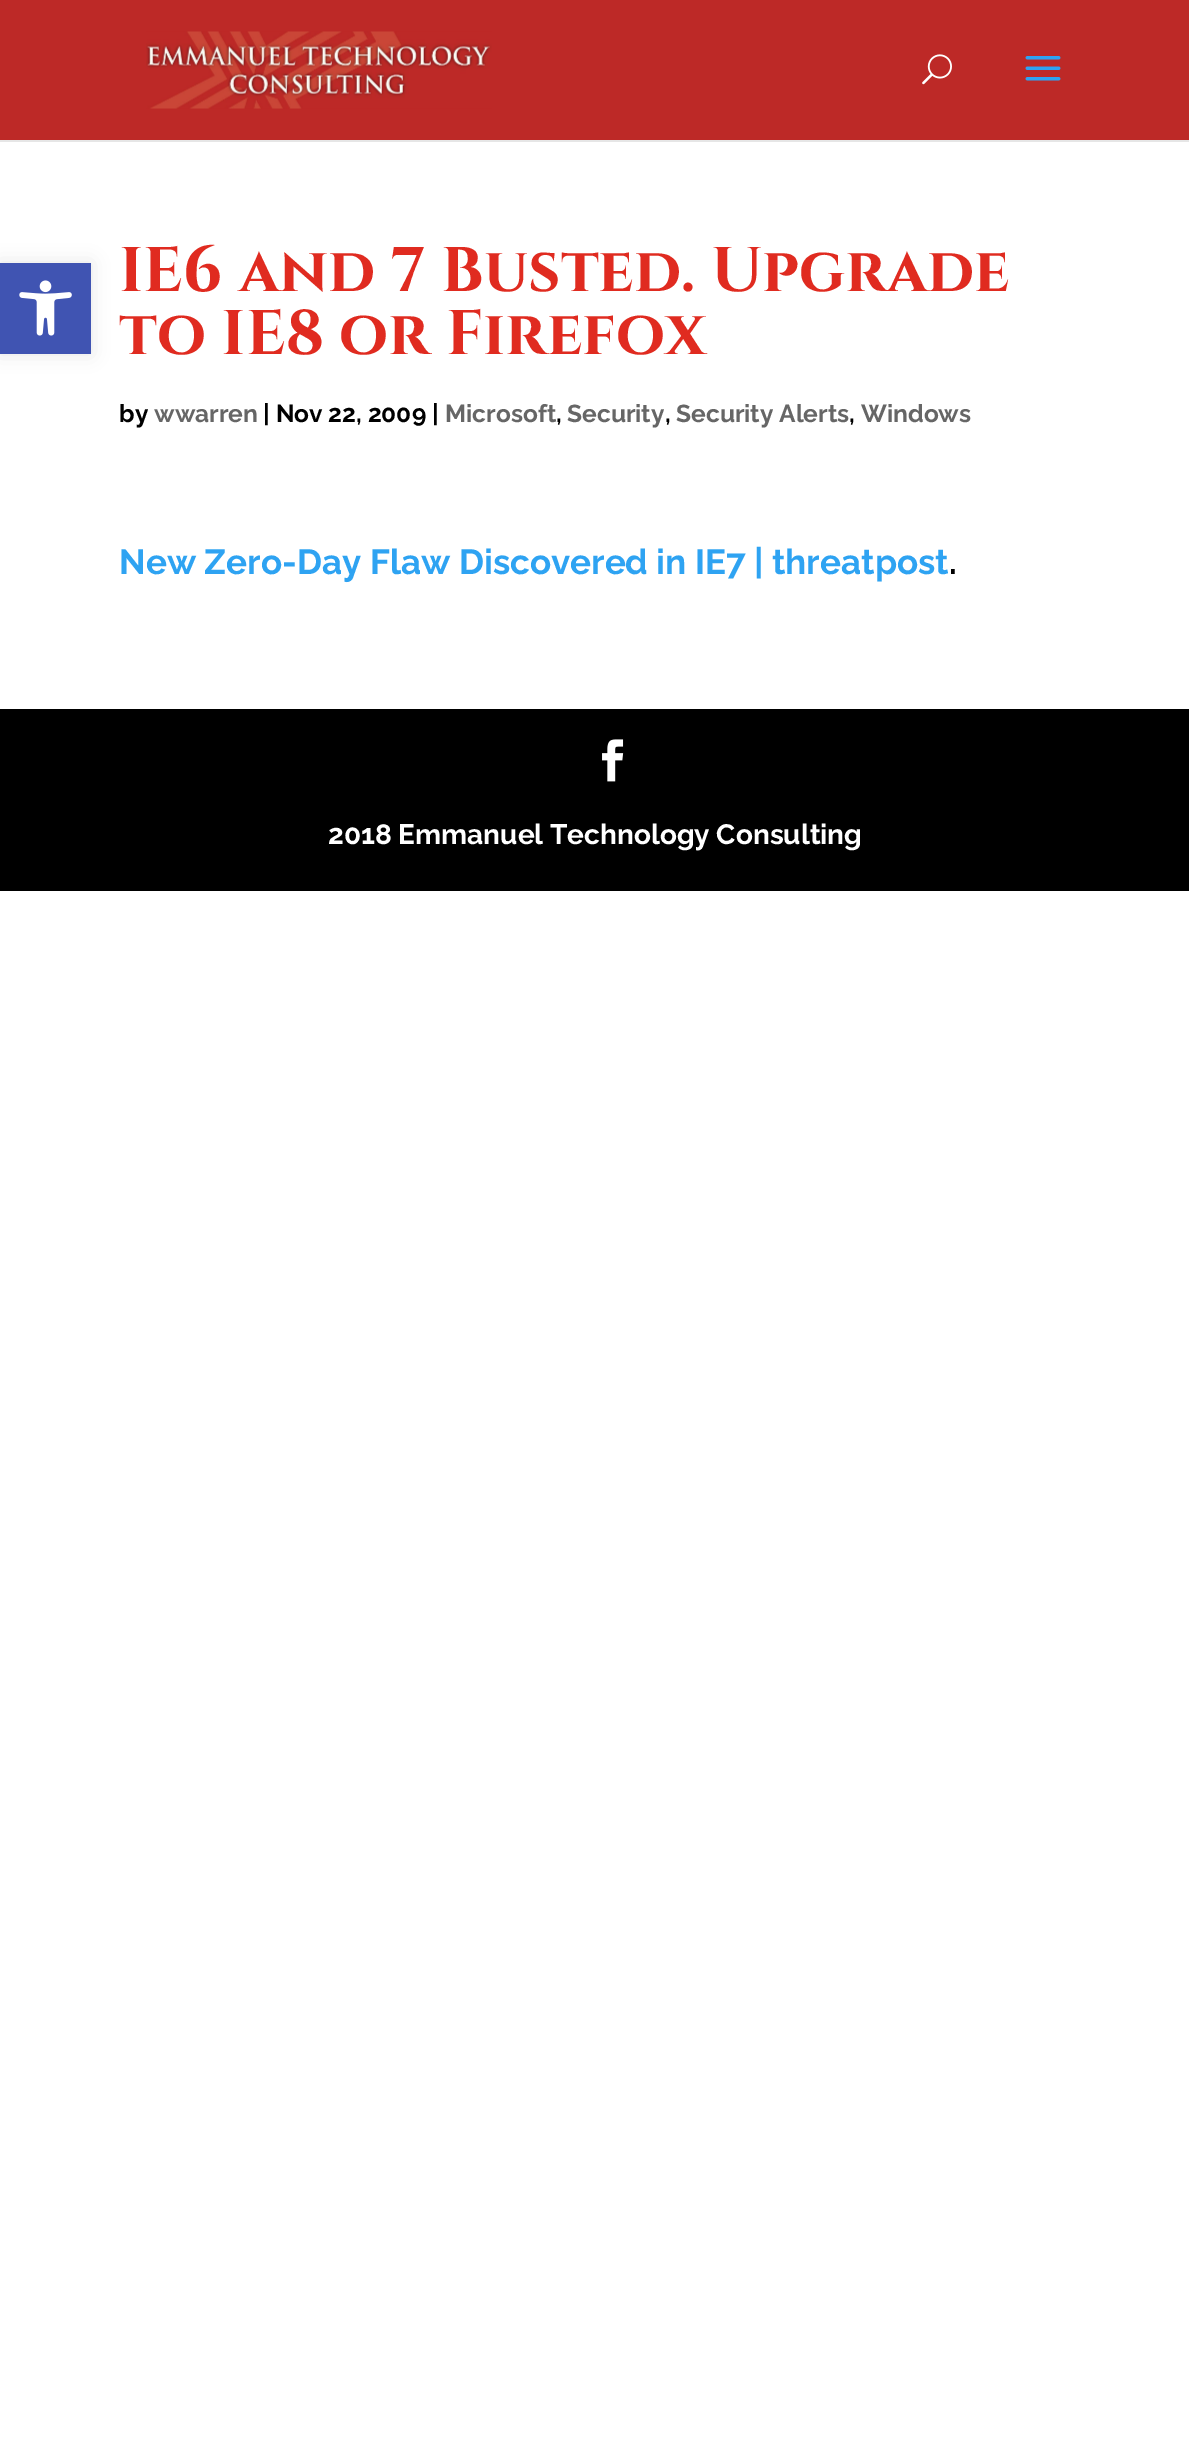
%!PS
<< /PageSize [1189 2447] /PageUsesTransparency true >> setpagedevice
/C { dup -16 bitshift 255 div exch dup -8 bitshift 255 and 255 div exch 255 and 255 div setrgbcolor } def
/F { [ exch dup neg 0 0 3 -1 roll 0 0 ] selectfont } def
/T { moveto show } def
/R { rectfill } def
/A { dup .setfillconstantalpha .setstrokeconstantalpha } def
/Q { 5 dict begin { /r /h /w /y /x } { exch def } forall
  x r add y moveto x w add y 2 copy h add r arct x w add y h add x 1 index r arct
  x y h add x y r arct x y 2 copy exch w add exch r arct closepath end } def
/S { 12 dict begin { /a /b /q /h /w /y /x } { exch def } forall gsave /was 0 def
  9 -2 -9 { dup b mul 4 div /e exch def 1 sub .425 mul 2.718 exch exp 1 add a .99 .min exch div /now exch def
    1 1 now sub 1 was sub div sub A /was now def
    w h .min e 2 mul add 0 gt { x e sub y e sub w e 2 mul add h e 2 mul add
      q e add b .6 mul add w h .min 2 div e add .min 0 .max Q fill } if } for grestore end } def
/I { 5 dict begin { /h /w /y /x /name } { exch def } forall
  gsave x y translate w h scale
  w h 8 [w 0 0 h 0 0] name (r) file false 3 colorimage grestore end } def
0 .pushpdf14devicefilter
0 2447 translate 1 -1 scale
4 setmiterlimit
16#FFFFFF C
0 0 1189 2447 R
16#000000 C
0 263 91 91 0 9 .1 S
16#4054B2 C
0 263 91 91 R
(1.rgb) 19 280 53 56 I
16#E6E6E6 C
0 140 1189 2 R
16#BD2927 C
0 0 1189 140 R
(2.rgb) 146 31 346 78 I
(3.rgb) 922 54 30 31 I
(4.rgb) 1025 56 36 25 I
/Cinzel-Bold 63 F
16#E02B20 C
(IE6 and 7 Busted. Upgrade) 119 291 T
(to IE8 or Firefox) 119 354 T
/Raleway-Thin 24.5 F
16#000000 C
(by) 119 422 T
16#666666 C
(wwarren) 154 422 T
16#000000 C
(| Nov 22, 2009 |) 263 422 T
16#666666 C
(Microsoft) 445 422 T
16#000000 C
(,) 556 422 T
16#666666 C
(Security) 567 422 T
16#000000 C
(,) 665 422 T
16#666666 C
(Security Alerts) 676 422 T
16#000000 C
(,) 849 422 T
16#666666 C
(Windows) 861 422 T
/Raleway-Thin 35 F
16#2EA3F2 C
(New Zero-Day Flaw Discovered in IE7 | threatpost) 119 574 T
16#000000 C
(.) 949 574 T
0 709 1189 182 R
(5.rgb) 602 739 22 43 I
/Raleway-Thin 28 F
16#FFFFFF C
(2018 Emmanuel Technology Consulting) 328 844 T
.poppdf14devicefilter showpage
